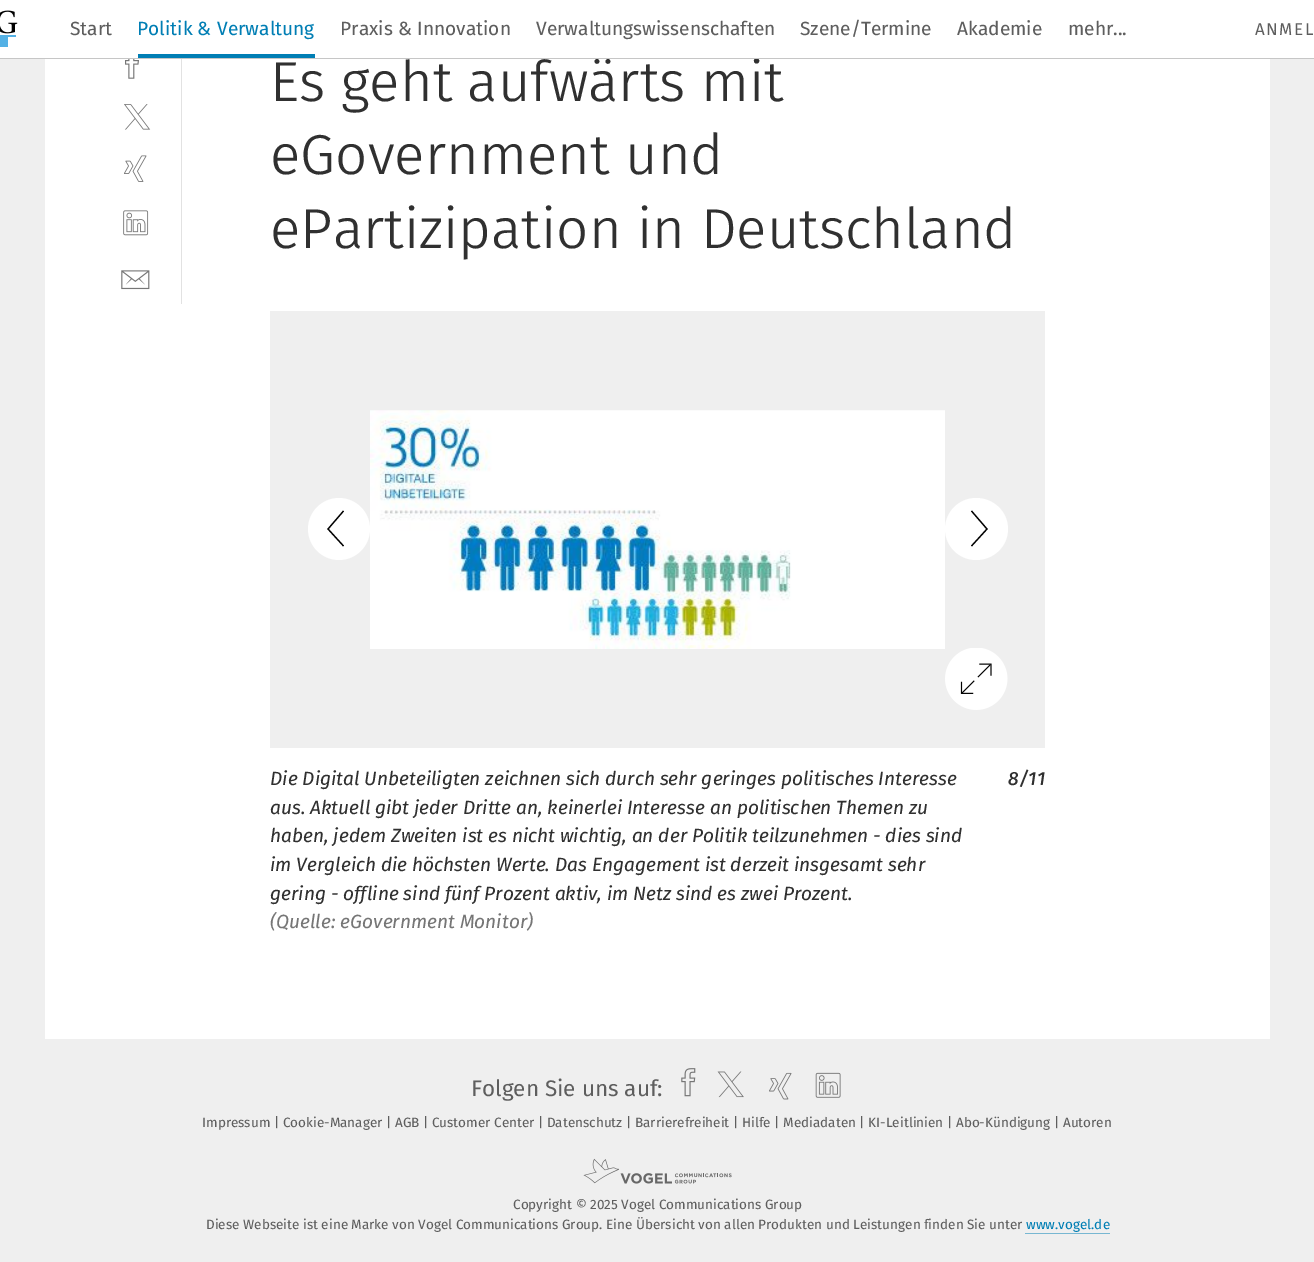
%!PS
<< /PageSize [1314 1262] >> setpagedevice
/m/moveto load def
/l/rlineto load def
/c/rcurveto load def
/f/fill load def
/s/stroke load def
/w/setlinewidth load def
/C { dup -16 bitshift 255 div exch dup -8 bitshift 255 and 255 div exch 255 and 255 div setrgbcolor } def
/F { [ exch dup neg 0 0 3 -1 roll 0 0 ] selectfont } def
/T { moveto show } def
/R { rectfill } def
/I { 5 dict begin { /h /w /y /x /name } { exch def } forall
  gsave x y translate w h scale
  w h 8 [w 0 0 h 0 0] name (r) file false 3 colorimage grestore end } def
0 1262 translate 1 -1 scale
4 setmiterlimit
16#EFEFEF C
0 0 1314 1262 R
16#FFFFFF C
45 59 1225 980 R
0 0 1314 58 R
/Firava-Light 56.25 F
16#303030 C
(Es geht aufwärts mit) 270 101 T
16#C6C6C6 C
0 58 1314 1 R
(1.rgb) 0 10 18 37 I
/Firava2-Regular 19.1 F
16#5E5E5E C
(Start) 70 35 T
16#007EB4 C
138 54 177 4 R
(Politik & Verwaltung) 137 35 T
16#5E5E5E C
(Praxis & Innovation) 340 35 T
(Verwaltungswissenschaften) 536 35 T
(Szene/Termine) 800 35 T
(Akademie) 957 35 T
(mehr...) 1068 35 T
/Firava-Regular 17 F
1255 35 m 1.5 0 (ANMEL) ashow
16#E2E2E2 C
181 59 1 245 R
(2.rgb) 125 59 14 20 I
(3.rgb) 124 104 27 26 I
(4.rgb) 124 155 23 27 I
(5.rgb) 123 210 26 26 I
(6.rgb) 121 270 29 20 I
/Firava-Light 56.25 F
16#303030 C
(eGovernment und) 270 174 T
(ePartizipation in Deutschland) 270 248 T
16#EFEFEF C
270 311 775 437 R
16#FFFFFF C
339 560 m 17 0 31 -14 31 -31 c 0 -17 -14 -31 -31 -31 c -17 0 -31 14 -31 31 c 0 17 14 31 31 31 c f
16#000000 C
1.2 w
343.5 511 m -15.5 18 l 15.5 17 l s
(7.rgb) 370 410 575 239 I
16#FFFFFF C
976 498 m -17 0 -31 14 -31 31 c 0 17 14 31 31 31 c 18 0 32 -14 32 -31 c 0 -17 -14 -31 -32 -31 c f
16#000000 C
971.5 546 m 15.5 -17 l -15.5 -18 l s
(8.rgb) 945 648 63 62 I
/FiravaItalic-Italic 19.1 F
16#303030 C
(Die Digital Unbeteiligten zeichnen sich durch sehr geringes politisches Interesse) 270 785 T
(aus. Aktuell gibt jeder Dritte an, keinerlei Interesse an politischen Themen zu) 270 814 T
(haben, jedem Zweiten ist es nicht wichtig, an der Politik teilzunehmen - dies sind) 270 842 T
(im Vergleich die höchsten Werte. Das Engagement ist derzeit insgesamt sehr) 270 871 T
(gering - offline sind fünf Prozent aktiv, im Netz sind es zwei Prozent.) 270 900 T
16#767676 C
(\(Quelle: eGovernment Monitor\)) 270 928 T
/FiravaItalic-MediumItalic 19.1 F
16#303030 C
(8/11) 1008 785 T
/Firava-Regular 22.5 F
16#5E5E5E C
(Folgen Sie uns auf:) 471 1096 T
(9.rgb) 681 1068 15 29 I
(10.rgb) 717 1071 27 27 I
(11.rgb) 769 1072 23 28 I
(12.rgb) 815 1072 26 26 I
/Firava2-Regular 13.5 F
(Impressum | Cookie-Manager | AGB | Customer Center | Datenschutz | Barrierefreiheit | Hilfe | Mediadaten | KI-Leitlinien | Abo-Kündigung | Autoren) 202 1127 T
(13.rgb) 583 1158 149 26 I
(Copyright © 2025 Vogel Communications Group) 513 1209 T
(Diese Webseite ist eine Marke von Vogel Communications Group. Eine Übersicht von allen Produkten und Leistungen finden Sie unter) 206 1229 T
16#007EB4 C
(www.vogel.de) 1026 1229 T
16#78B7D2 C
1025 1233 85 1 R
showpage
